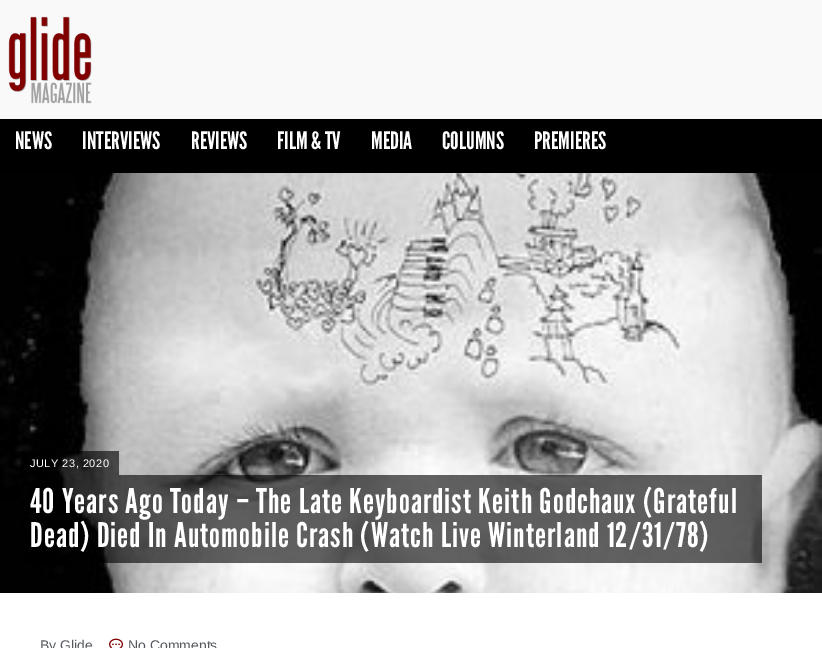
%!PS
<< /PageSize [822 648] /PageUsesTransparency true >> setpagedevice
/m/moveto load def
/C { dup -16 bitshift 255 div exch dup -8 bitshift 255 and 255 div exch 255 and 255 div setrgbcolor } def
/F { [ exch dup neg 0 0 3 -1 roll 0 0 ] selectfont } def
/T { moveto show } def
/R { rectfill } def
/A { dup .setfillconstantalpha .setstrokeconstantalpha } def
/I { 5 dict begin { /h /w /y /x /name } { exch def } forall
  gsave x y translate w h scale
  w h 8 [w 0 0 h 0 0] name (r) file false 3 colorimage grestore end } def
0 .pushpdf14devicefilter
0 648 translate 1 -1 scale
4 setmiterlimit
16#FFFFFF C
0 0 822 648 R
16#F9F9F9 C
0 0 822 119 R
(1.rgb) 8 16 84 88 I
16#000000 C
0 119 822 54 R
/LeagueGothic-Regular 24 F
16#FFFFFF C
(NEWS) 15 149 T
(INTERVIEWS) 82 149 T
(REVIEWS) 191 149 T
(FILM & TV) 277 149 T
(MEDIA) 371 149 T
(COLUMNS) 442 149 T
(PREMIERES) 534 149 T
(2.rgb) 0 173 822 420 I
0.61 A
16#000000 C
20 451 99 24 R
/LiberationSans-Regular 11 F
1 A
16#FFFFFF C
30 467 m .5 0 (JULY 23, 2020) ashow
0.61 A
16#000000 C
23 475 739 88 R
/LeagueGothic-Regular 34 F
1 A
16#FFFFFF C
30 513 m 1 0 (40 Years Ago Today – The Late Keyboardist Keith Godchaux \(Grateful) ashow
30 547 m 1 0 (Dead\) Died In Automobile Crash \(Watch Live Winterland 12/31/78\)) ashow
/LiberationSans-Regular 14 F
16#54595F C
(By Glide) 40 650 T
(3.rgb) 109 638 14 10 I
(No Comments) 128 650 T
.poppdf14devicefilter showpage
